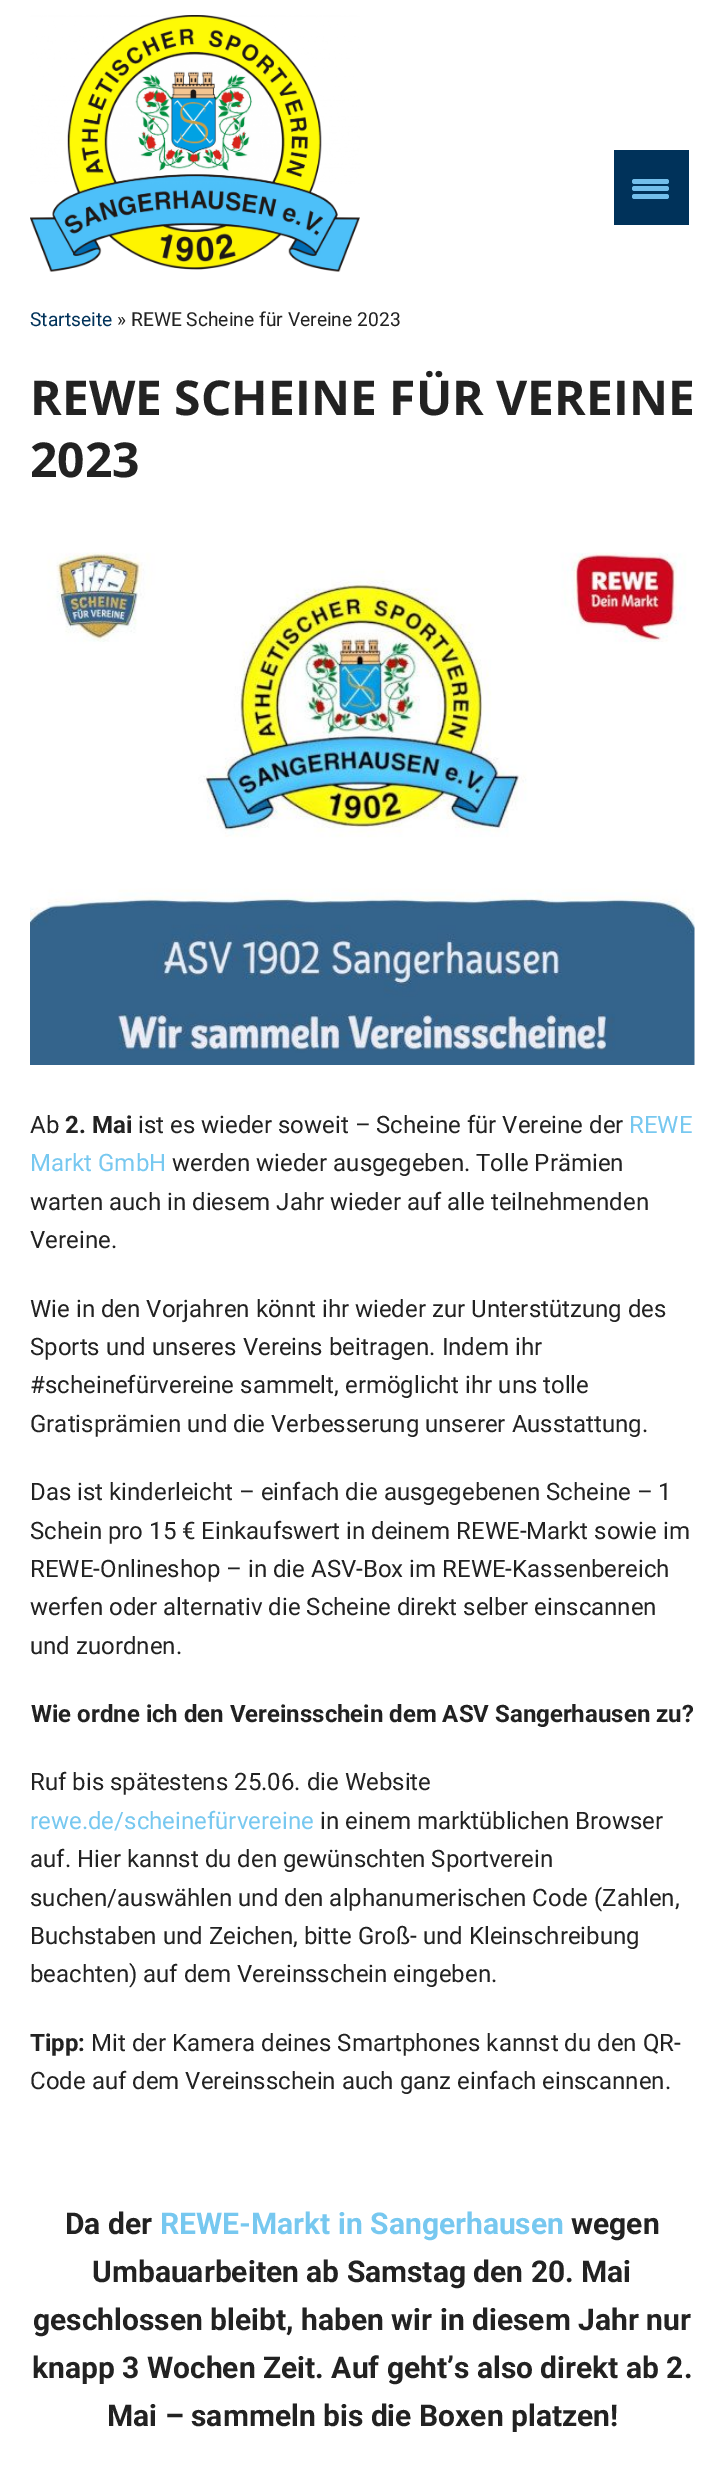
%!PS
<< /PageSize [724 2482] >> setpagedevice
/f/fill load def
/C { dup -16 bitshift 255 div exch dup -8 bitshift 255 and 255 div exch 255 and 255 div setrgbcolor } def
/F { [ exch dup neg 0 0 3 -1 roll 0 0 ] selectfont } def
/T { moveto show } def
/R { rectfill } def
/Q { 5 dict begin { /r /h /w /y /x } { exch def } forall
  x r add y moveto x w add y 2 copy h add r arct x w add y h add x 1 index r arct
  x y h add x y r arct x y 2 copy exch w add exch r arct closepath end } def
/I { 5 dict begin { /h /w /y /x /name } { exch def } forall
  gsave x y translate w h scale
  w h 8 [w 0 0 h 0 0] name (r) file false 3 colorimage grestore end } def
0 2482 translate 1 -1 scale
4 setmiterlimit
16#FFFFFF C
0 0 724 2482 R
16#00325A C
614 150 75 75 R
16#73BEEB C
632 186 37 5 2.5 Q f
632 179 37 5 2.5 Q f
632 194 37 5 2.5 Q f
(1.rgb) 30 15 330 257 I
/Roboto-Regular 19.25 F
16#00325A C
(Startseite) 30 326 T
16#222222 C
(» REWE Scheine für Vereine 2023) 117 326 T
/OpenSans-Bold 48 F
(REWE SCHEINE FÜR VEREINE) 30 415 T
(2023) 30 477 T
(2.rgb) 30 552 665 513 I
/Roboto-Regular 24 F
(Ab) 30 1133 T
/Roboto-Bold 24 F
(2. Mai) 65 1133 T
/Roboto-Regular 24 F
(ist es wieder soweit – Scheine für Vereine der) 138 1133 T
16#77C8F0 C
(REWE) 629 1133 T
(Markt GmbH) 30 1171 T
16#222222 C
(werden wieder ausgegeben. Tolle Prämien) 172 1171 T
(warten auch in diesem Jahr wieder auf alle teilnehmenden) 30 1210 T
(Vereine.) 30 1248 T
(Wie in den Vorjahren könnt ihr wieder zur Unterstützung des) 30 1317 T
(Sports und unseres Vereins beitragen. Indem ihr) 30 1355 T
(#scheinefürvereine sammelt, ermöglicht ihr uns tolle) 30 1393 T
(Gratisprämien und die Verbesserung unserer Ausstattung.) 30 1432 T
(Das ist kinderleicht – einfach die ausgegebenen Scheine – 1) 30 1500 T
(Schein pro 15 € Einkaufswert in deinem REWE-Markt sowie im) 30 1539 T
(REWE-Onlineshop – in die ASV-Box im REWE-Kassenbereich) 30 1577 T
(werfen oder alternativ die Scheine direkt selber einscannen) 30 1615 T
(und zuordnen.) 30 1654 T
/Roboto-Bold 24 F
(Wie ordne ich den Vereinsschein dem ASV Sangerhausen zu?) 31 1722 T
/Roboto-Regular 24 F
(Ruf bis spätestens 25.06. die Website) 30 1790 T
16#77C8F0 C
(rewe.de/scheinefürvereine) 30 1829 T
16#222222 C
(in einem marktüblichen Browser) 320 1829 T
(auf. Hier kannst du den gewünschten Sportverein) 30 1867 T
(suchen/auswählen und den alphanumerischen Code \(Zahlen,) 30 1906 T
(Buchstaben und Zeichen, bitte Groß- und Kleinschreibung) 30 1944 T
(beachten\) auf dem Vereinsschein eingeben.) 30 1982 T
/Roboto-Bold 24 F
(Tipp:) 30 2051 T
/Roboto-Regular 24 F
(Mit der Kamera deines Smartphones kannst du den QR-) 91 2051 T
(Code auf dem Vereinsschein auch ganz einfach einscannen.) 30 2089 T
/Roboto-Bold 30 F
(Da der) 65 2234 T
16#77C8F0 C
(REWE-Markt in Sangerhausen) 160 2234 T
16#222222 C
(wegen) 571 2234 T
(Umbauarbeiten ab Samstag den 20. Mai) 92 2282 T
(geschlossen bleibt, haben wir in diesem Jahr nur) 33 2330 T
(knapp 3 Wochen Zeit. Auf geht’s also direkt ab 2.) 32 2378 T
(Mai – sammeln bis die Boxen platzen!) 107 2426 T
showpage
